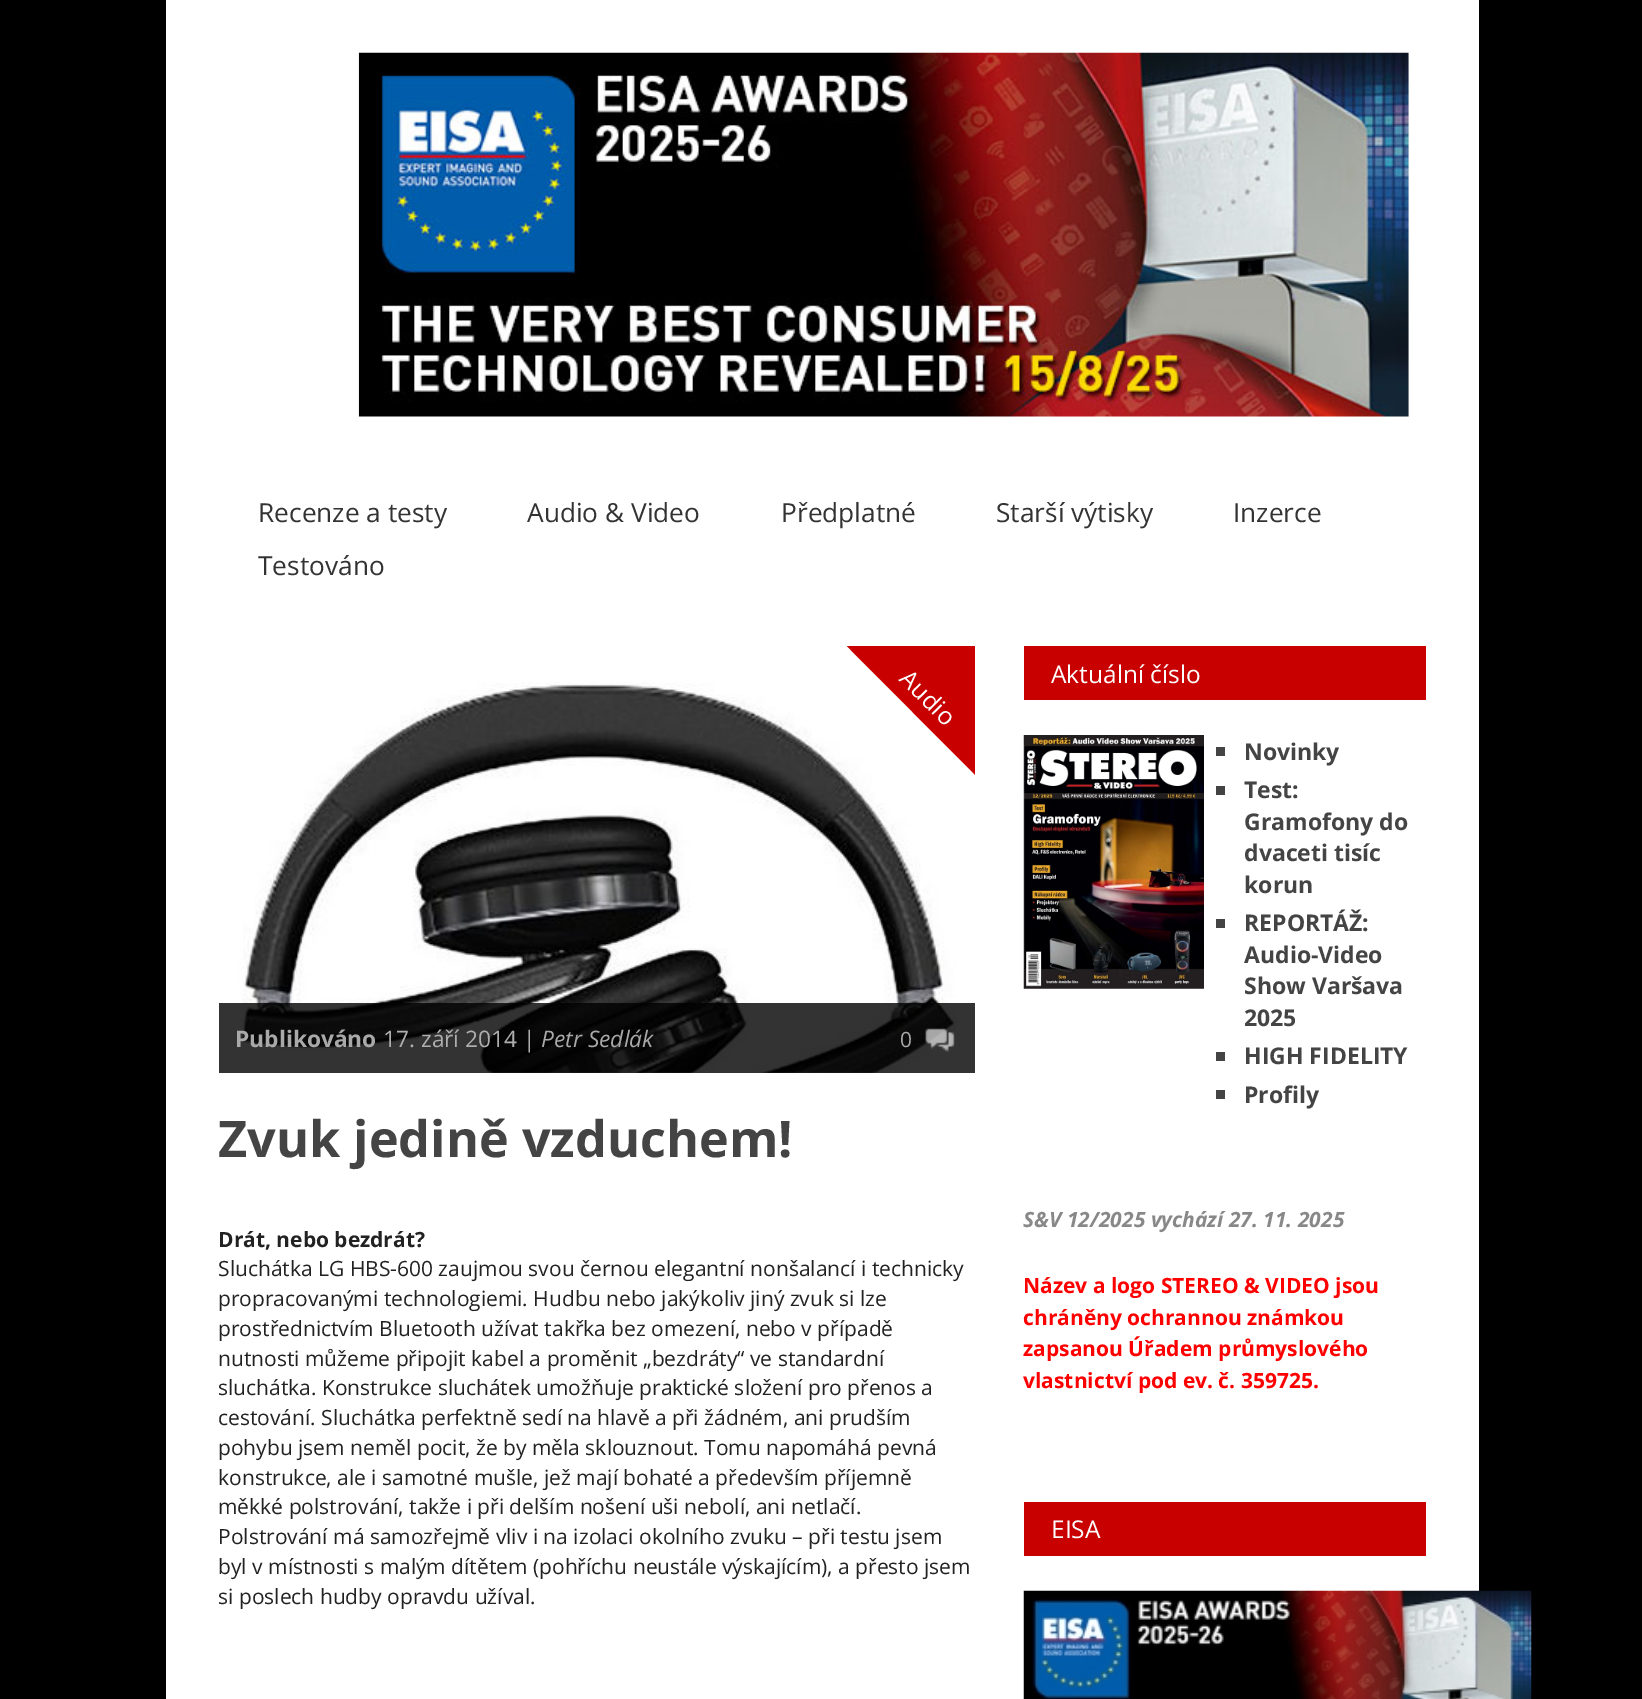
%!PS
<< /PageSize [1642 1699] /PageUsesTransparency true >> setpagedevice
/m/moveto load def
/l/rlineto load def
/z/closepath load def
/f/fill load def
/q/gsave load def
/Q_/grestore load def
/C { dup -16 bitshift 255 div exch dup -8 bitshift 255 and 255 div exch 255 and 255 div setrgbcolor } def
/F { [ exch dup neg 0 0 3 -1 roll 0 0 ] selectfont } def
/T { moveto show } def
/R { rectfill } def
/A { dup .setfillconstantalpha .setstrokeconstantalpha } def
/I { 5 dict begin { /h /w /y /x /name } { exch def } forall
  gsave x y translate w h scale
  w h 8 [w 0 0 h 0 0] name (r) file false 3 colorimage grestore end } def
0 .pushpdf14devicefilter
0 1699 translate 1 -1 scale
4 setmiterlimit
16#000000 C
0 0 1642 1699 R
16#FFFFFF C
166 0 1313 1699 R
(1.rgb) 358 52 1051 365 I
/OpenSans-Regular 26.25 F
16#333333 C
(Recenze a testy) 258 522 T
(Audio & Video) 527 522 T
(Předplatné) 781 522 T
(Starší výtisky) 996 522 T
(Inzerce) 1233 522 T
(Testováno) 258 575 T
(2.rgb) 231 682 726 391 I
q
219 646 756 427 rectclip
16#C80000 C
902 474 m 248 248 l -114 114 l -247 -248 l z f
Q_
/OpenSans-Regular 24.5 F
16#FFFFFF C
q 898 680 translate 45 rotate 0 0 m (Audio) show Q_
0.8 A
16#000000 C
219 1003 756 70 R
/OpenSans-Bold 22.75 F
1 A
16#A9A9A9 C
(Publikováno) 235 1047 T
/OpenSans-Regular 22.75 F
16#AFAFAF C
(17. září 2014 |) 383 1047 T
/OpenSans-Italic 22.75 F
16#A9A9A9 C
(Petr Sedlák) 541 1047 T
(3.rgb) 925 1028 30 24 I
/OpenSans-Regular 21 F
(0) 900 1047 T
/OpenSans-Bold 50.4 F
16#444444 C
(Zvuk jedině vzduchem!) 218 1157 T
/OpenSans-Bold 21 F
16#222222 C
(Drát, nebo bezdrát?) 218 1247 T
/OpenSans-Regular 21 F
(Sluchátka LG HBS-600 zaujmou svou černou elegantní nonšalancí i technicky) 218 1276 T
(propracovanými technologiemi. Hudbu nebo jakýkoliv jiný zvuk si lze) 218 1306 T
(prostřednictvím Bluetooth užívat takřka bez omezení, nebo v případě) 218 1336 T
(nutnosti můžeme připojit kabel a proměnit „bezdráty“ ve standardní) 218 1366 T
(sluchátka. Konstrukce sluchátek umožňuje praktické složení pro přenos a) 218 1395 T
(cestování. Sluchátka perfektně sedí na hlavě a při žádném, ani prudším) 218 1425 T
(pohybu jsem neměl pocit, že by měla sklouznout. Tomu napomáhá pevná) 218 1455 T
(konstrukce, ale i samotné mušle, jež mají bohaté a především příjemně) 218 1485 T
(měkké polstrování, takže i při delším nošení uši nebolí, ani netlačí.) 218 1514 T
(Polstrování má samozřejmě vliv i na izolaci okolního zvuku – při testu jsem) 218 1544 T
(byl v místnosti s malým dítětem \(pohříchu neustále výskajícím\), a přesto jsem) 218 1574 T
(si poslech hudby opravdu užíval.) 218 1604 T
16#C80000 C
1024 646 402 54 R
/OpenSans-Regular 24.5 F
16#FFFFFF C
(Aktuální číslo) 1051 683 T
(4.rgb) 1023 735 181 254 I
16#444444 C
1216 747 9 9 R
/OpenSans-Bold 23 F
(Novinky) 1244 760 T
1216 786 9 9 R
(Test:) 1244 798 T
(Gramofony do) 1244 830 T
(dvaceti tisíc) 1244 861 T
(korun) 1244 893 T
1216 919 9 9 R
(REPORTÁŽ:) 1244 931 T
(Audio-Video) 1244 963 T
(Show Varšava) 1244 994 T
(2025) 1244 1026 T
1216 1052 9 9 R
(HIGH FIDELITY) 1244 1064 T
1216 1090 9 9 R
(Profily) 1244 1103 T
/OpenSans-BoldItalic 21 F
16#888888 C
(S&V 12/2025 vychází 27. 11. 2025) 1023 1227 T
/OpenSans-Bold 21 F
16#FF0000 C
(Název a logo STEREO & VIDEO jsou) 1023 1293 T
(chráněny ochrannou známkou) 1023 1325 T
(zapsanou Úřadem průmyslového) 1023 1356 T
(vlastnictví pod ev. č. 359725.) 1023 1388 T
16#C80000 C
1024 1502 402 54 R
/OpenSans-Regular 24.5 F
16#FFFFFF C
(EISA) 1051 1538 T
(5.rgb) 1023 1590 509 109 I
.poppdf14devicefilter showpage
